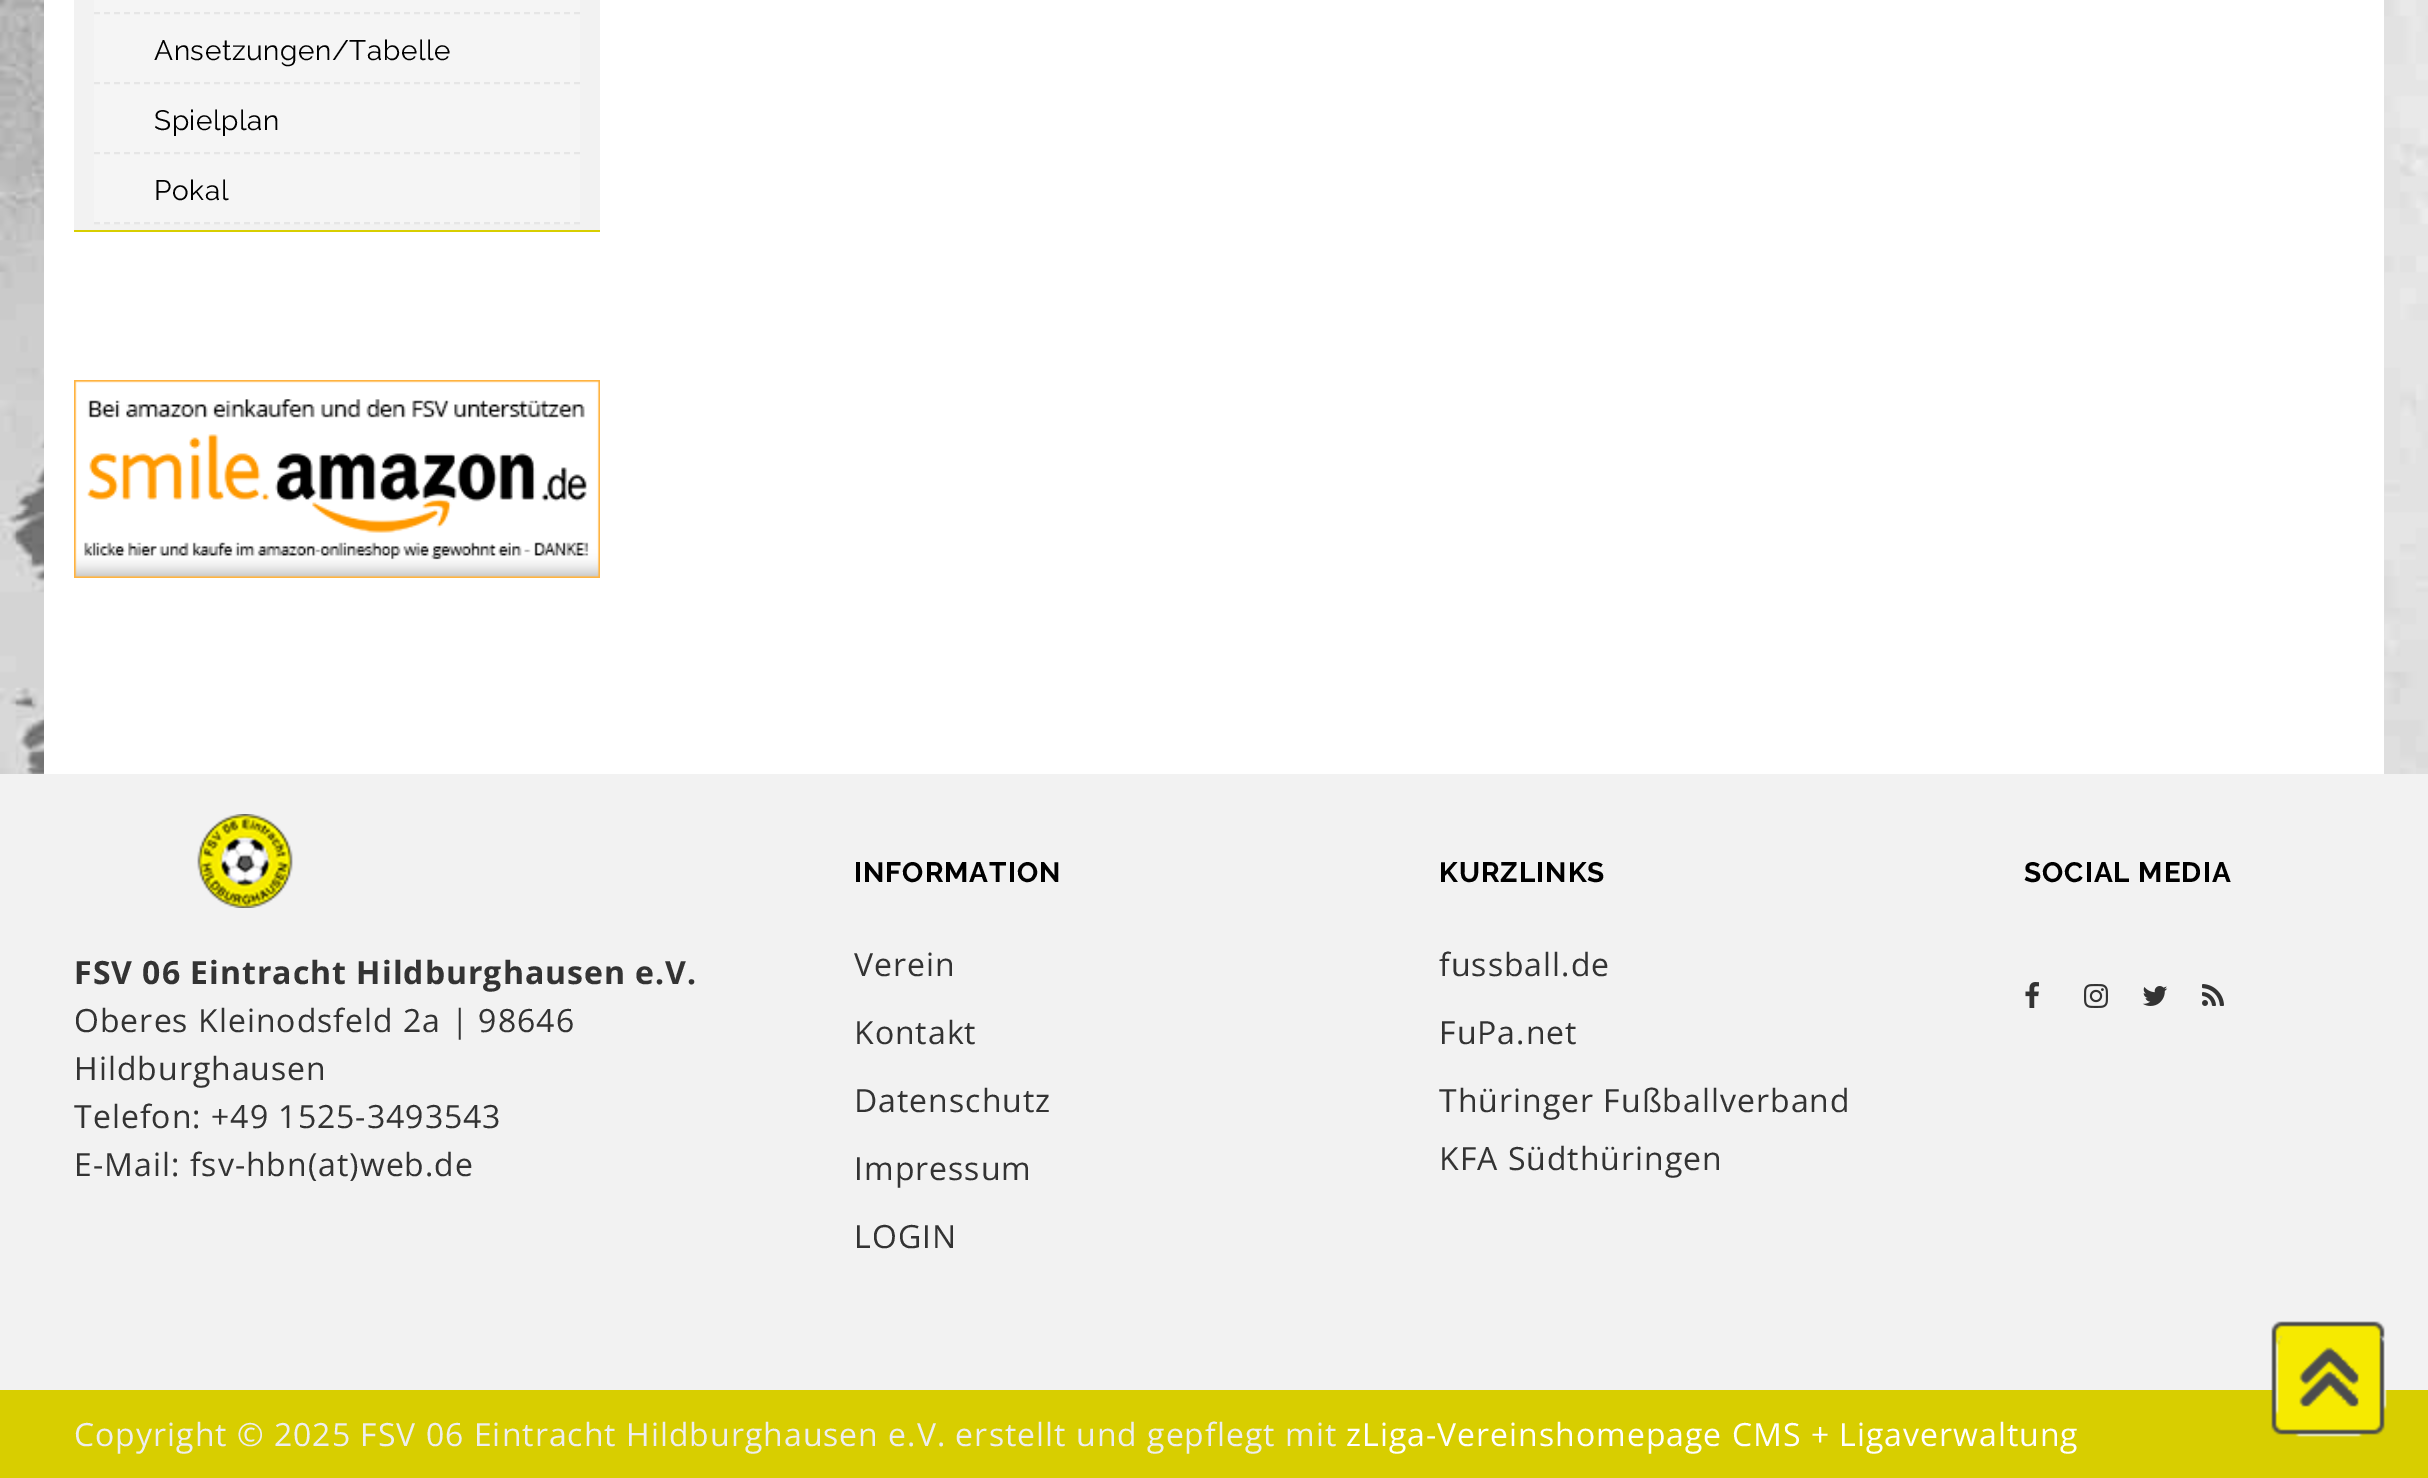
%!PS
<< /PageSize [2428 1478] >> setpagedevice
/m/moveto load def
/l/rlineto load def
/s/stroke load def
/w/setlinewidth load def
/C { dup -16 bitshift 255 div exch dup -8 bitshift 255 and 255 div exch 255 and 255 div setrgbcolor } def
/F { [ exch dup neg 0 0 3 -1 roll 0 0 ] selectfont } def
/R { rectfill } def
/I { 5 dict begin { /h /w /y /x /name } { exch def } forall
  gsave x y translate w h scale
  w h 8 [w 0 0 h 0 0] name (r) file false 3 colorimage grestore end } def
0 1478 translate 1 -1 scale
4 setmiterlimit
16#FFFFFF C
0 0 2428 1478 R
(1.rgb) 0 0 2428 774 I
44 0 2340 774 R
16#F2F2F2 C
74 0 526 230 R
16#D8CE00 C
74 230 526 2 R
16#F5F5F5 C
94 0 486 224 R
16#E6E6E6 C
2 w
[6 4] 0 setdash
94 13 m 486 0 l s
94 83 m 486 0 l s
/Raleway-Thin 28 F
16#000000 C
154 60 m .6 0 (Ansetzungen/Tabelle) ashow
16#E6E6E6 C
94 153 m 486 0 l s
16#000000 C
154 130 m .6 0 (Spielplan) ashow
16#E6E6E6 C
94 223 m 486 0 l s
16#000000 C
154 200 m .6 0 (Pokal) ashow
(2.rgb) 74 380 526 198 I
16#F2F2F2 C
0 774 2428 616 R
/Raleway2-Thin 28 F
16#000000 C
854 882 m 1 0 (INFORMATION) ashow
/OpenSans-Regular 32 F
16#333333 C
854 976 m 1 0 (Verein) ashow
854 1044 m 1 0 (Kontakt) ashow
854 1112 m 1 0 (Datenschutz) ashow
854 1180 m 1 0 (Impressum) ashow
854 1248 m 1 0 (LOGIN) ashow
/Raleway2-Thin 28 F
16#000000 C
1439 882 m 1 0 (KURZLINKS) ashow
/OpenSans-Regular 32 F
16#333333 C
1439 976 m 1 0 (fussball.de) ashow
1439 1044 m 1 0 (FuPa.net) ashow
1439 1112 m 1 0 (Thüringer Fußballverband) ashow
1439 1170 m 1 0 (KFA Südthüringen) ashow
/Raleway2-Thin 28 F
16#000000 C
2024 882 m 1 0 (SOCIAL MEDIA) ashow
(3.rgb) 2025 982 14 26 I
(4.rgb) 2084 984 24 24 I
(5.rgb) 2142 986 26 20 I
(6.rgb) 2202 984 22 22 I
(7.rgb) 197 814 96 94 I
/OpenSans-Bold 32 F
16#333333 C
74 984 m 1 0 (FSV 06 Eintracht Hildburghausen e.V.) ashow
/OpenSans-Regular 32 F
74 1032 m 1 0 (Oberes Kleinodsfeld 2a | 98646) ashow
74 1080 m 1 0 (Hildburghausen) ashow
74 1128 m 1 0 (Telefon: +49 1525-3493543) ashow
74 1176 m 1 0 (E-Mail: fsv-hbn\(at\)web.de) ashow
16#D8CE00 C
0 1390 2428 88 R
16#EEEEEE C
74 1446 m 1 0 (Copyright © 2025 FSV 06 Eintracht Hildburghausen e.V. erstellt und gepflegt mit) ashow
16#FFFFFF C
1346 1446 m 1 0 (zLiga-Vereinshomepage CMS + Ligaverwaltung) ashow
(8.rgb) 2271 1321 116 116 I
showpage
